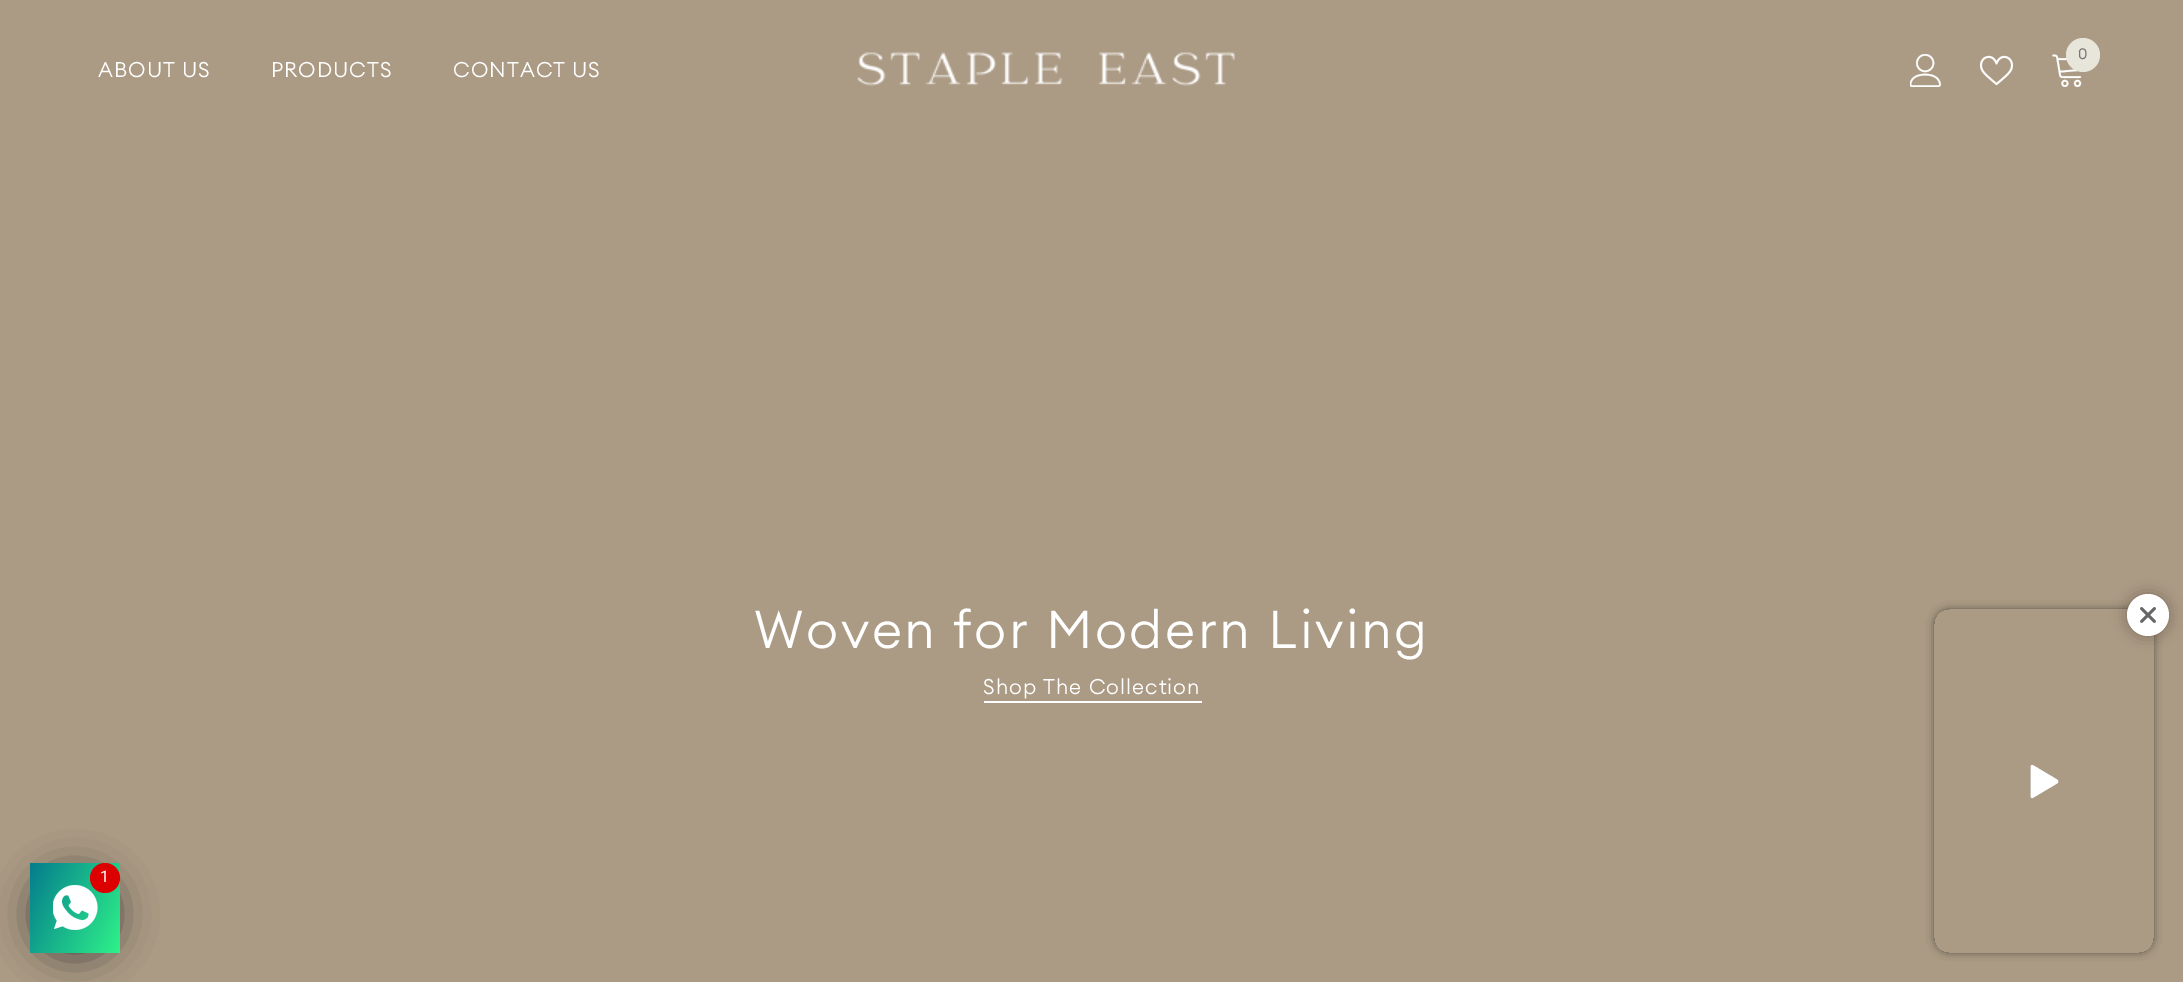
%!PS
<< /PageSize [2183 982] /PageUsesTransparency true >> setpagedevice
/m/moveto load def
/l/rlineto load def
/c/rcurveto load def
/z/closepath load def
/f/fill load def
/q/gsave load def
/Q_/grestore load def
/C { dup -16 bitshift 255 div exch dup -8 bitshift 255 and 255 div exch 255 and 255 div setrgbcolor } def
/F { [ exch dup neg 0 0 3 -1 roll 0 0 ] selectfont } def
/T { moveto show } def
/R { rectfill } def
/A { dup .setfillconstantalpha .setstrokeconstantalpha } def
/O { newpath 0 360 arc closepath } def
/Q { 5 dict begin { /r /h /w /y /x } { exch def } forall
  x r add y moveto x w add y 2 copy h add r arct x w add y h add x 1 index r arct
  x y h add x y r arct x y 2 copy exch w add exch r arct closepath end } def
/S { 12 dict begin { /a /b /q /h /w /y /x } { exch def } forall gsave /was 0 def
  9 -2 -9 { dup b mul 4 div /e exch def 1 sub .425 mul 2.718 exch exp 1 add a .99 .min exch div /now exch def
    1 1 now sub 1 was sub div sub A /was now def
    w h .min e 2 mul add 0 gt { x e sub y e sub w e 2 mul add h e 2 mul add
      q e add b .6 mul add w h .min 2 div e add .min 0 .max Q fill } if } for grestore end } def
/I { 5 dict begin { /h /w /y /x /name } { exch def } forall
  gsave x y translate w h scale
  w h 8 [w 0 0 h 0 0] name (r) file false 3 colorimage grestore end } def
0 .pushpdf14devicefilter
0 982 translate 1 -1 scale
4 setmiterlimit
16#AB9A84 C
0 0 2183 982 R
/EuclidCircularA-Light 21 F
16#FFFFFF C
98 77 m 1 0 (ABOUT US) ashow
271 77 m 1 0 (PRODUCTS) ashow
453 77 m 1 0 (CONTACT US) ashow
(1.rgb) 857 52 378 34 I
(2.rgb) 1910 54 31 33 I
(3.rgb) 1980 55 33 31 I
(4.rgb) 2052 54 30 33 I
16#E8E6DB C
2083 55 17 O f
/EuclidCircularA-Regular 15 F
16#757575 C
(0) 2078 59 T
/EuclidCircularA-Light 52.5 F
16#FFFFFF C
754 648 m 2.6 0 (Woven for Modern Living) ashow
/EuclidCircularA-Light 21 F
983 694 m 1 0 (Shop The Collection) ashow
984 701 218 2 R
16#020610 C
30 869 90 90 45 18 .5 S
q 30 863 m 90 0 l 0 90 l -90 0 l z clip newpath
<< /ShadingType 2 /ColorSpace /DeviceRGB /Coords [21 882 129 933] /Extend [true true] /Function << /FunctionType 2 /Domain [0 1] /C0 [.016 .486 .553] /C1 [.184 .949 .537] /N 1 >> >> shfill Q_
(5.rgb) 53 885 45 45 I
16#DD0000 C
105 878 15 O f
/Roboto-Regular 16 F
16#FFFFFF C
(1) 100 882 T
16#000000 C
2127 594 42 42 21 7.5 .27 S
q
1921 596 m 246 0 l 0 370 l -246 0 l z 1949 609 m 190 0 l 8.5 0 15 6.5 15 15 c 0 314 l 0 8.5 -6.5 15 -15 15 c -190 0 l -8.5 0 -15 -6.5 -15 -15 c 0 -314 l 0 -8.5 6.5 -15 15 -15 c z eoclip newpath
1934 609 220 344 15 4 .43 S
Q_
16#FFFFFF C
2148 615 21 O f
(6.rgb) 2140 607 16 16 I
(7.rgb) 2030 764 29 35 I
.poppdf14devicefilter showpage
